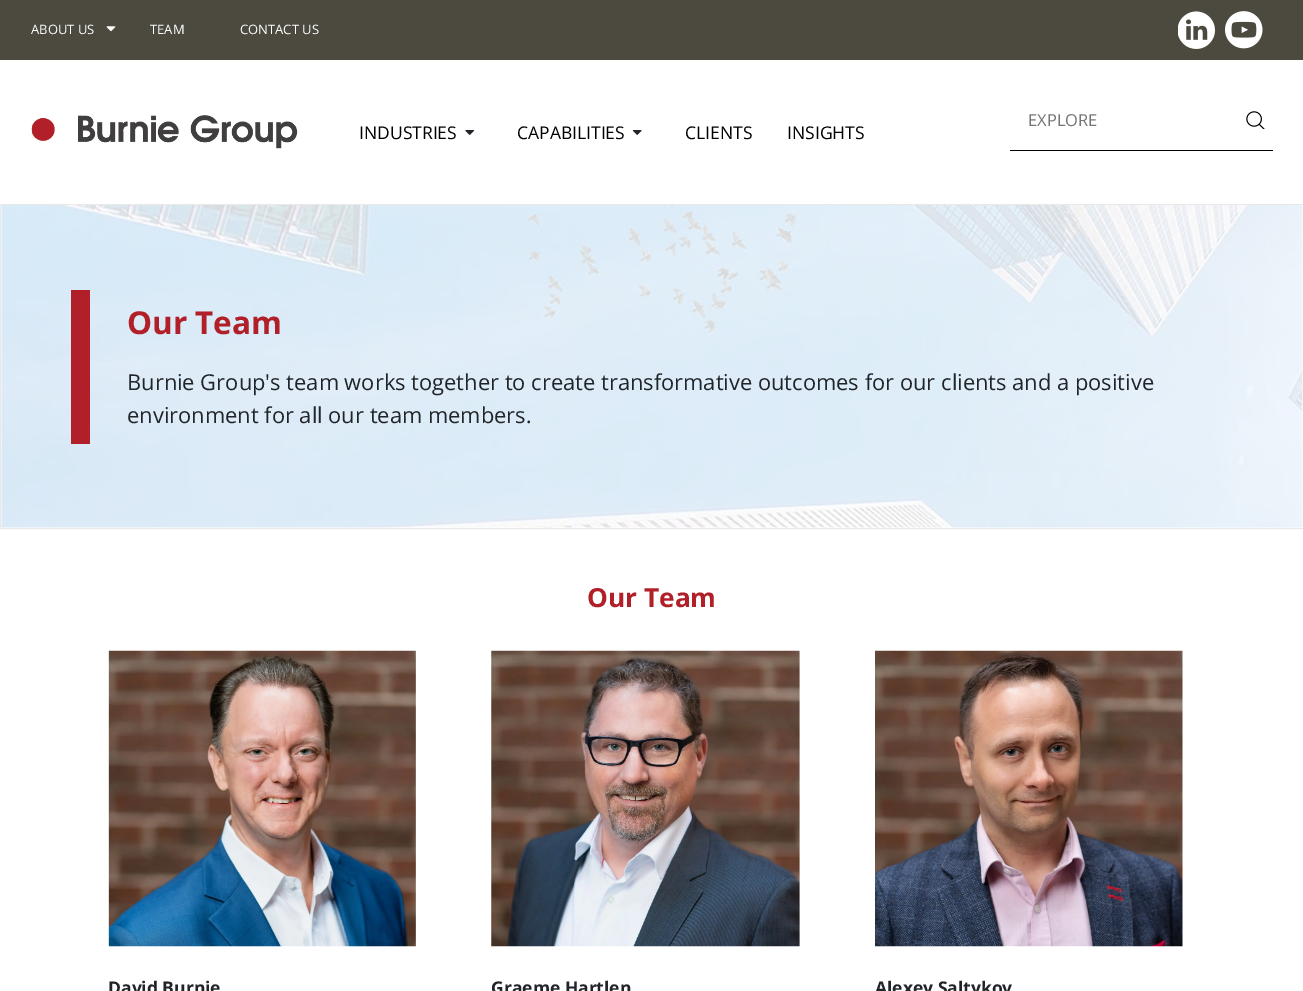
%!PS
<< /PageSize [1303 991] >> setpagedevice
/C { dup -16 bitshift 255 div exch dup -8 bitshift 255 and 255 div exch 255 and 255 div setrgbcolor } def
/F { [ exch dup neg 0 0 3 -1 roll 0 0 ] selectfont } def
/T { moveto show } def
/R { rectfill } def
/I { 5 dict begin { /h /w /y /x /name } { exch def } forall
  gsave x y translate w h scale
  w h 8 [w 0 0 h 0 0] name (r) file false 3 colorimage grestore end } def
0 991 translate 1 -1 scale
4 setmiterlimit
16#FFFFFF C
0 0 1303 991 R
16#4C4A3F C
0 0 1303 60 R
/OpenSans-Regular 13 F
16#FFFFFF C
(ABOUT US) 31 34 T
(1.rgb) 106 26 10 6 I
(TEAM) 150 34 T
(CONTACT US) 240 34 T
(2.rgb) 1178 11 37 38 I
(3.rgb) 1225 11 38 38 I
(4.rgb) 31 115 267 34 I
/OpenSans-Regular 17.5 F
16#000000 C
(INDUSTRIES) 359 139 T
(5.rgb) 465 130 9 5 I
(CAPABILITIES) 517 139 T
(6.rgb) 632 130 10 5 I
(CLIENTS) 685 139 T
(INSIGHTS) 787 139 T
1010 150 263 1 R
/OpenSans-Regular 16.5 F
16#757575 C
(EXPLORE) 1028 126 T
(7.rgb) 1246 111 19 18 I
16#E9E9E9 C
.5 204.5 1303 324 rectstroke
(8.rgb) 1 205 1302 323 I
16#B12029 C
71 290 19 154 R
/OpenSans-Bold 31.5 F
(Our Team) 127 334 T
/OpenSans-Regular 21.9 F
16#212529 C
(Burnie Group's team works together to create transformative outcomes for our clients and a positive) 127 390 T
(environment for all our team members.) 127 423 T
/OpenSans-Bold 26.25 F
16#B12029 C
(Our Team) 587 607 T
(9.rgb) 108 650 308 297 I
/OpenSans-Bold 17.5 F
16#212529 C
(David Burnie) 108 994 T
(10.rgb) 491 650 309 297 I
(Graeme Hartlen) 491 994 T
(11.rgb) 875 650 308 297 I
(Alexey Saltykov) 875 994 T
showpage
